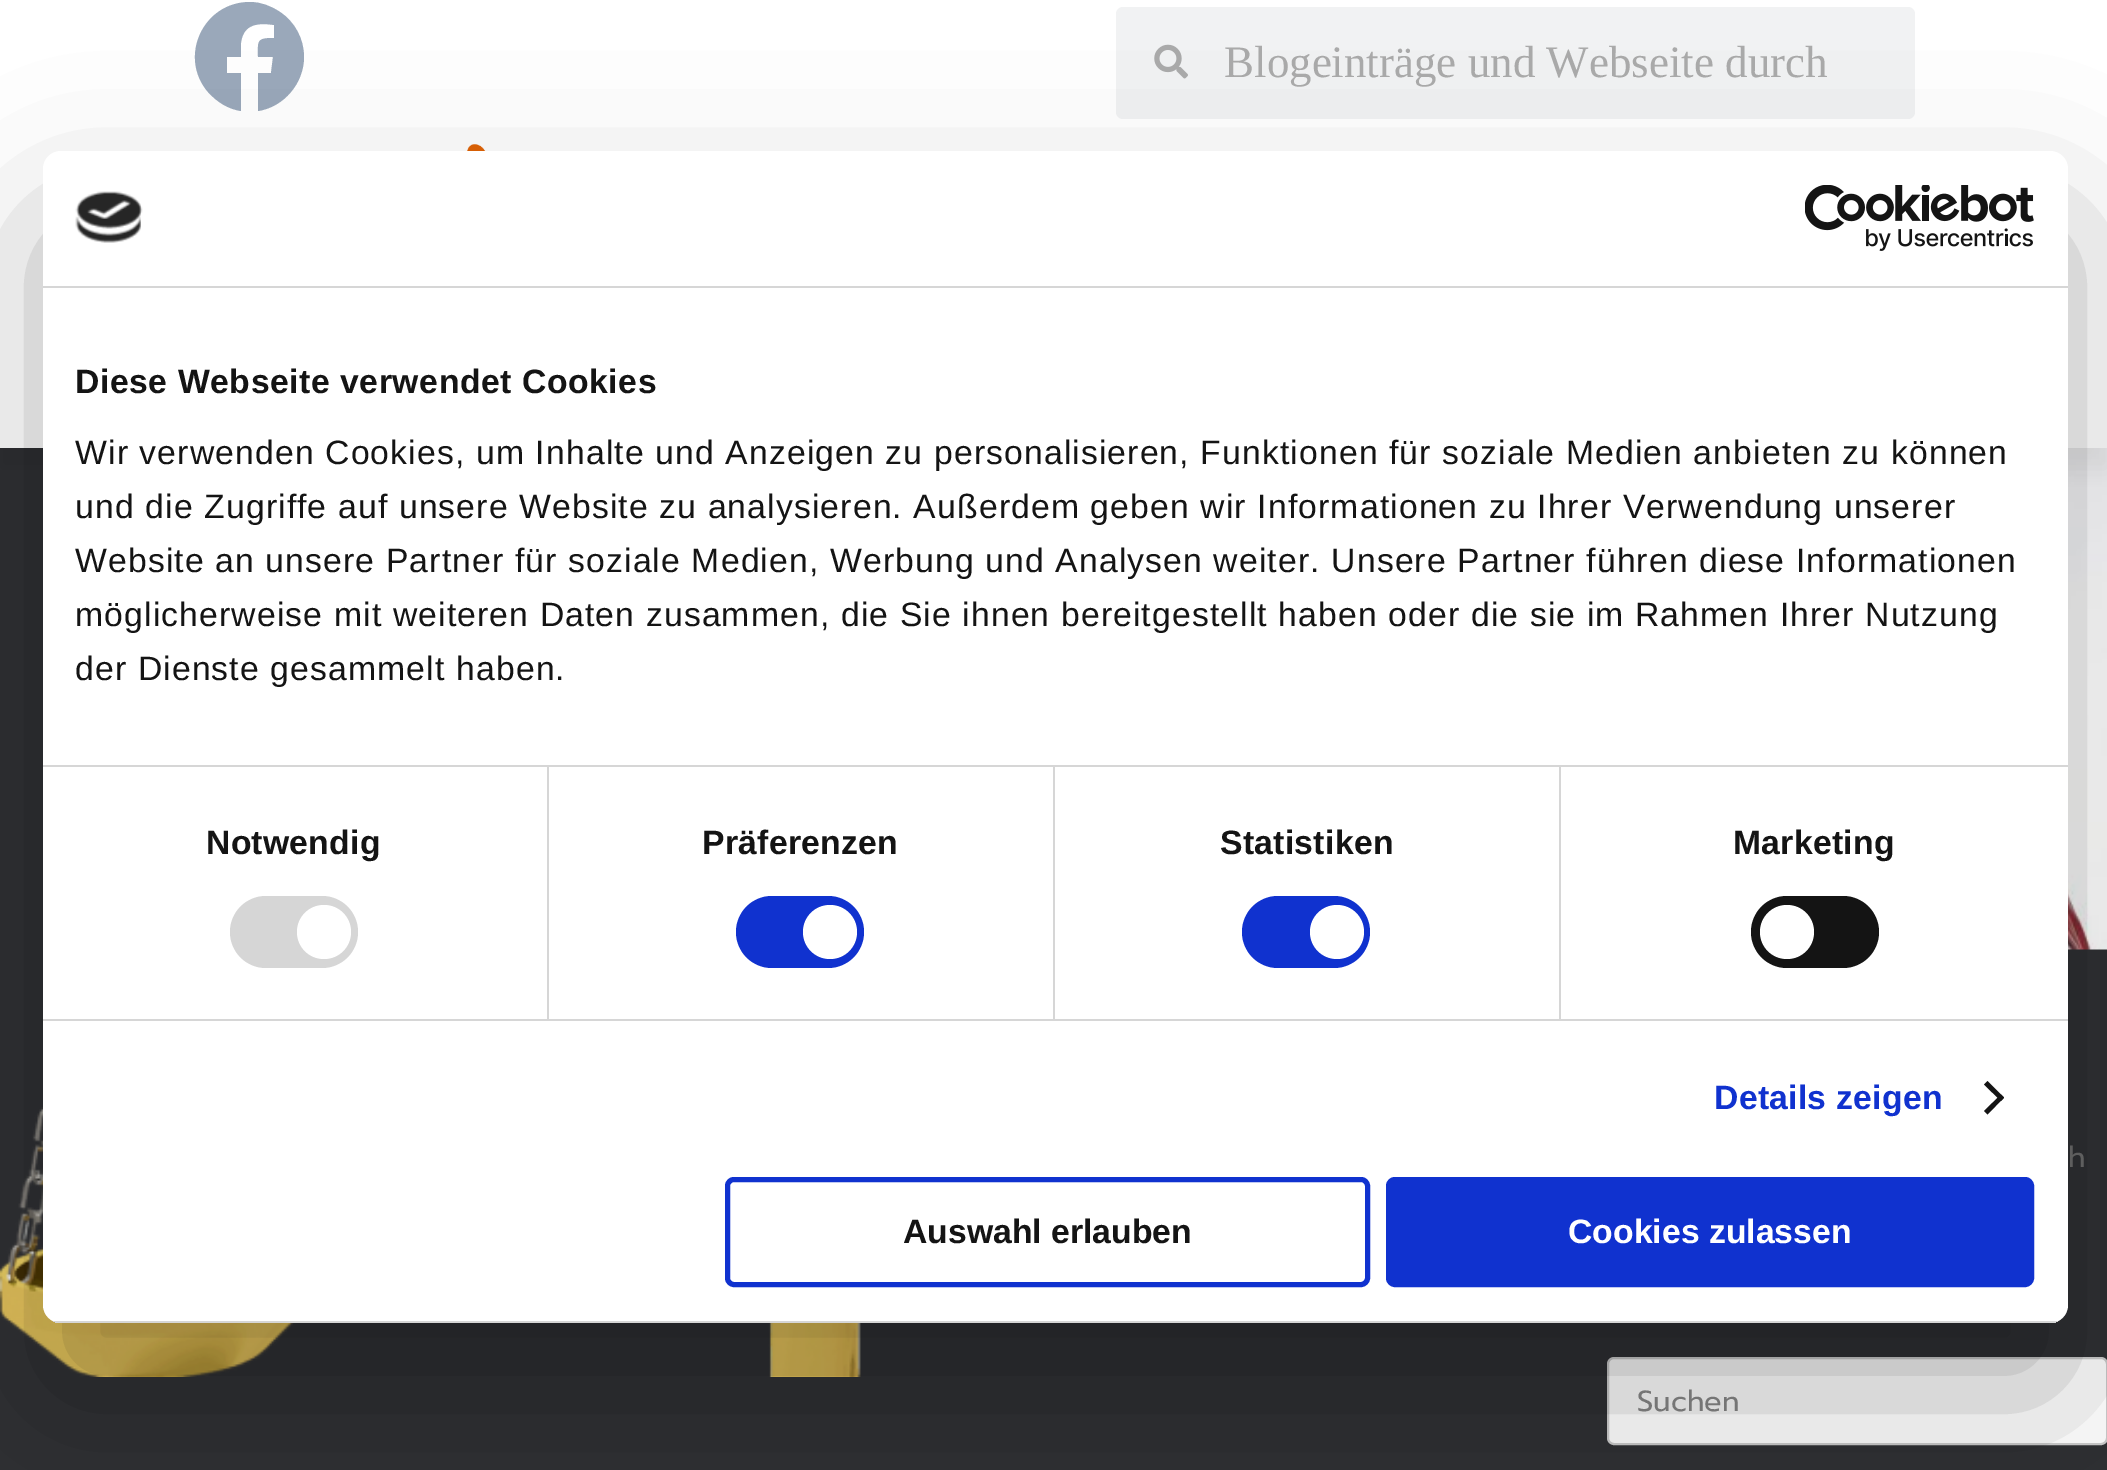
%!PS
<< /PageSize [2107 1470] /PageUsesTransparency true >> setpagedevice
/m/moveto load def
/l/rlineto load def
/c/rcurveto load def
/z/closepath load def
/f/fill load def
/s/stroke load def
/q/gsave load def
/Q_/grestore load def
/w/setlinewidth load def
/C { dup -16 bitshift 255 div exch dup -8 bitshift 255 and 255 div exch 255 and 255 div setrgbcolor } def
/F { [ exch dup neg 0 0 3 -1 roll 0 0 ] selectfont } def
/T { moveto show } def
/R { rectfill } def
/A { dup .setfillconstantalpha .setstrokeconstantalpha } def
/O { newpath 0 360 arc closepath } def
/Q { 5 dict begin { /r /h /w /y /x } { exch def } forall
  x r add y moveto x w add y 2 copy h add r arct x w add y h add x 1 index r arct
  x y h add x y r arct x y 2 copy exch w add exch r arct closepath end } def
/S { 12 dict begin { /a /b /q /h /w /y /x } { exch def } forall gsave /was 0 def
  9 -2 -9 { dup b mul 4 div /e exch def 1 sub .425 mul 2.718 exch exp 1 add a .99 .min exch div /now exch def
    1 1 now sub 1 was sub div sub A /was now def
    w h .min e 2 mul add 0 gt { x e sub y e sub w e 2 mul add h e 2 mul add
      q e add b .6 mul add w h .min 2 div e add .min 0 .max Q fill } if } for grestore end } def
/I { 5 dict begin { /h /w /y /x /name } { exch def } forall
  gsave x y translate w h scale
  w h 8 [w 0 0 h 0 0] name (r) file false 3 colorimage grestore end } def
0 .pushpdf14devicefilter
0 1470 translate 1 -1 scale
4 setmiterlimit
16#2F3033 C
0 0 2107 1470 R
16#FFFFFF C
0 0 2107 126 R
16#9AA8BA C
304 57 m 0 26 -20 50 -46 54 c 0 -38 l 13 0 l 2 -16 l -15 0 l 0 -16 -2 -19 16 -19 c 0 -13 l -13 -2 -28 -2 -32 13 c -2 6 -1 13 -1 19 c -14 0 l 0 16 l 14 0 l 0 38 l -13 -2 -24 -9 -33 -19 c -30 -35 -5 -90 42 -90 c 11 0 21 4 30 10 c 15 10 24 27 24 45 c z f
16#F1F2F3 C
1116 7 799 112 7 Q f
(1.rgb) 1154 44 34 35 I
/LiberationSerif-Regular 45 F
16#AAAAAA C
(Blogeinträge und Webseite durch) 1224 77 T
(6.rgb) 2068 448 39 502 I
16#000000 C
0 146 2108 322 0 11 .05 S
16#FFFFFF C
0 126 2107 322 R
(2.rgb) 467 144 19 7 I
(5.rgb) 0 1107 861 270 I
1608 1358 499 86 6 Q q f Q_
16#CCCCCC C
2 w
s
16#000000 C
43 223 2025 1172 18 76.5 .3 S
16#FFFFFF C
43 151 2025 1172 18 Q f
16#D6D6D6 C
43 286 2025 2 R
(3.rgb) 75 191 68 52 I
(4.rgb) 1805 185 229 66 I
43 765 2025 2 R
/LiberationSans-Bold 33.75 F
16#141414 C
75 393 m .55 0 (Diese Webseite verwendet Cookies) ashow
/LiberationSans-Regular 33.75 F
75 464 m 1.12 0 (Wir verwenden Cookies, um Inhalte und Anzeigen zu personalisieren, Funktionen für soziale Medien anbieten zu können) ashow
75 518 m 1.12 0 (und die Zugriffe auf unsere Website zu analysieren. Außerdem geben wir Informationen zu Ihrer Verwendung unserer) ashow
75 572 m 1.12 0 (Website an unsere Partner für soziale Medien, Werbung und Analysen weiter. Unsere Partner führen diese Informationen) ashow
75 626 m 1.12 0 (möglicherweise mit weiteren Daten zusammen, die Sie ihnen bereitgestellt haben oder die sie im Rahmen Ihrer Nutzung) ashow
75 680 m 1.12 0 (der Dienste gesammelt haben.) ashow
16#D6D6D6 C
43 1019 2025 2 R
547 767 2 252 R
/LiberationSans-Bold 33.75 F
16#141414 C
206 854 m .25 0 (Notwendig) ashow
16#D6D6D6 C
230 896 128 72 36 Q f
16#FFFFFF C
324 932 27 O f
16#D6D6D6 C
1053 767 2 252 R
16#141414 C
702 854 m .25 0 (Präferenzen) ashow
16#1032CF C
736 896 128 72 36 Q f
16#FFFFFF C
830 932 27 O f
16#D6D6D6 C
1559 767 2 252 R
16#141414 C
1220 854 m .25 0 (Statistiken) ashow
16#1032CF C
1242 896 128 72 36 Q f
16#FFFFFF C
1337 932 27 O f
16#141414 C
1733 854 m .25 0 (Marketing) ashow
1751 896 128 72 36 Q f
16#FFFFFF C
1787 932 27 O f
16#1032CF C
1714 1109 m .25 0 (Details zeigen) ashow
16#141414 C
1987.5 1081 m 16.5 16.5 l -3 3.5 l -17 -16.5 l z f
2001 1094.5 m 3 3 l -16.5 17 l -3.5 -3.5 l z f
q
43 151 2025 1172 18 Q clip newpath
16#D6D6D6 C
53 1321 2005 2 R
Q_
16#1032CF C
5 w
727.5 1179.5 640 105 6.5 Q s
16#141414 C
(Auswahl erlauben) 903 1243 T
16#1032CF C
1388.5 1179.5 643 105 6.5 Q q f Q_
s
16#FFFFFF C
(Cookies zulassen) 1568 1243 T
/Prompt-Regular 29 F
16#5E5E5E C
(h) 2068 1167 T
16#757575 C
(Suchen) 1637 1411 T
.poppdf14devicefilter showpage
